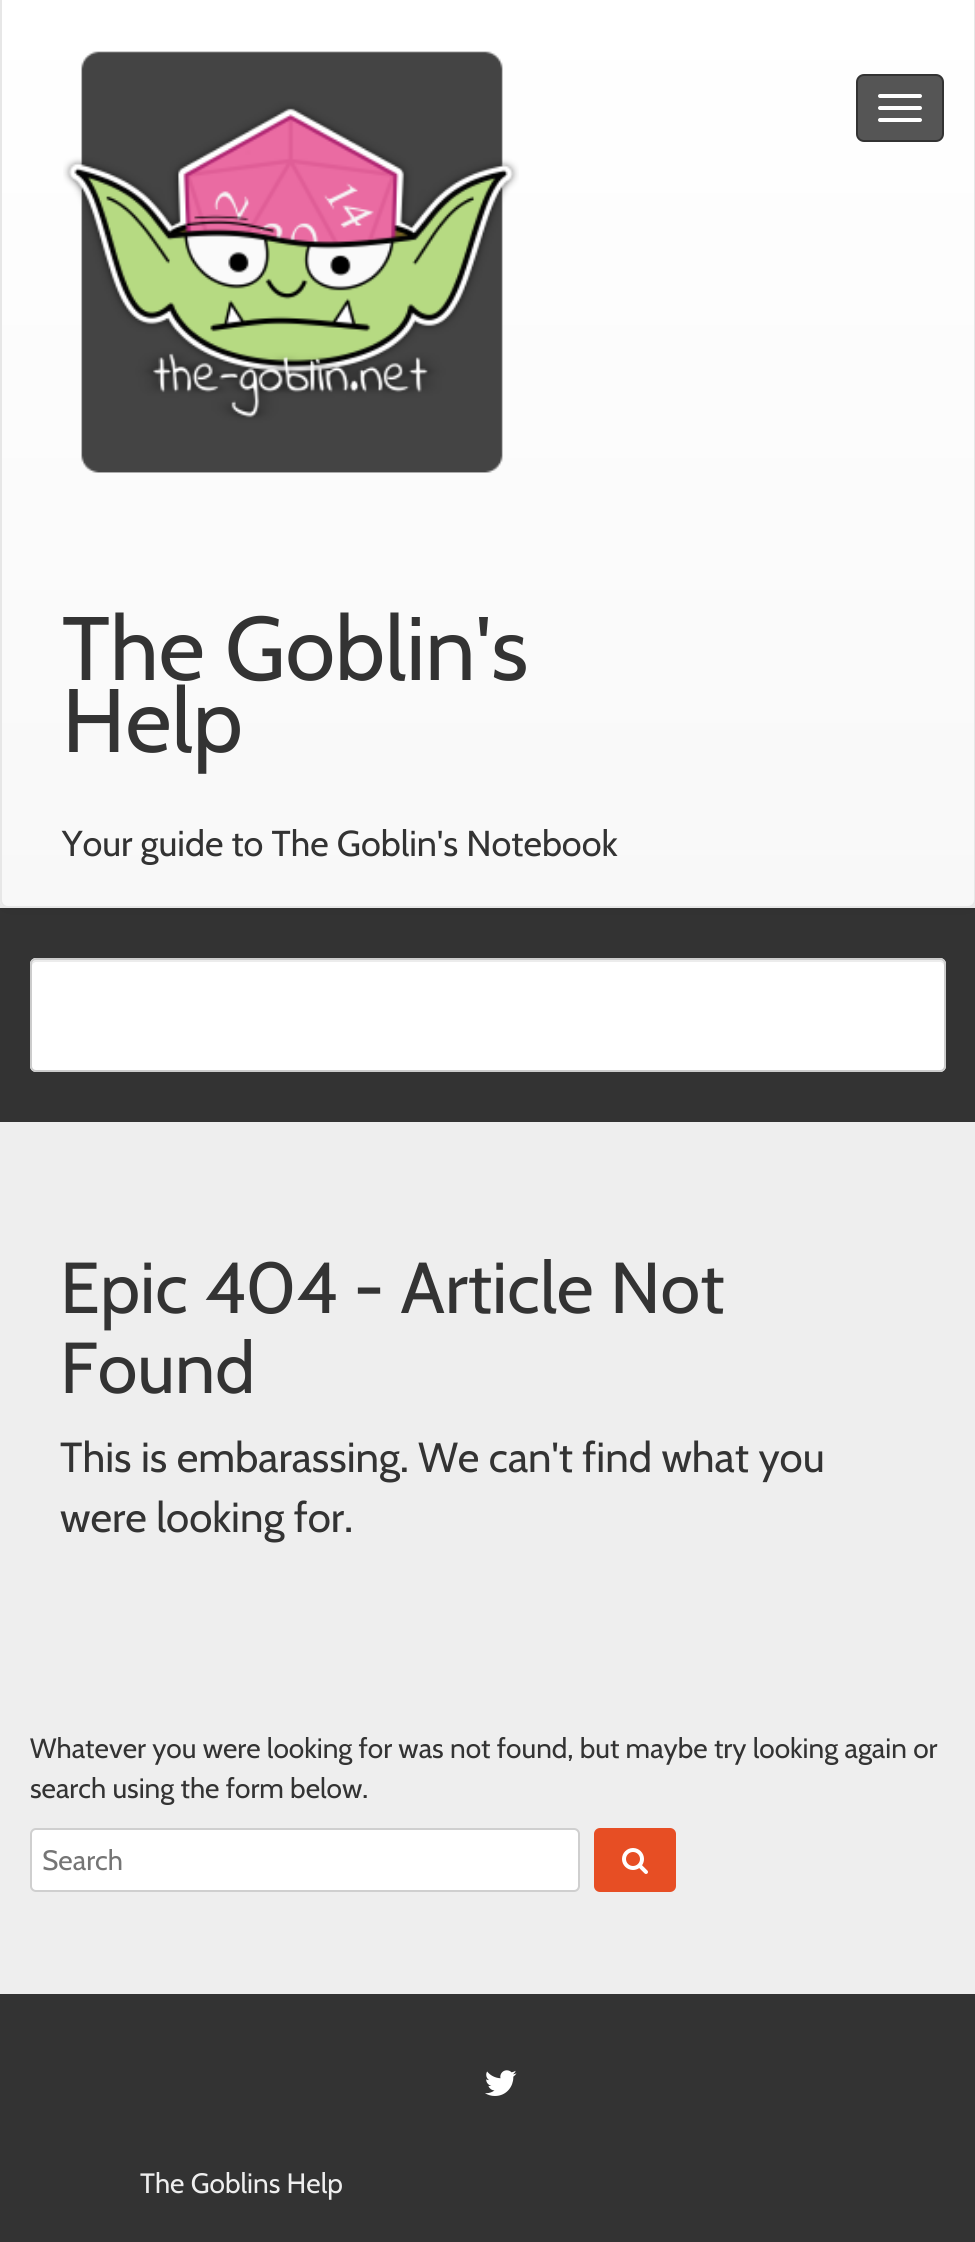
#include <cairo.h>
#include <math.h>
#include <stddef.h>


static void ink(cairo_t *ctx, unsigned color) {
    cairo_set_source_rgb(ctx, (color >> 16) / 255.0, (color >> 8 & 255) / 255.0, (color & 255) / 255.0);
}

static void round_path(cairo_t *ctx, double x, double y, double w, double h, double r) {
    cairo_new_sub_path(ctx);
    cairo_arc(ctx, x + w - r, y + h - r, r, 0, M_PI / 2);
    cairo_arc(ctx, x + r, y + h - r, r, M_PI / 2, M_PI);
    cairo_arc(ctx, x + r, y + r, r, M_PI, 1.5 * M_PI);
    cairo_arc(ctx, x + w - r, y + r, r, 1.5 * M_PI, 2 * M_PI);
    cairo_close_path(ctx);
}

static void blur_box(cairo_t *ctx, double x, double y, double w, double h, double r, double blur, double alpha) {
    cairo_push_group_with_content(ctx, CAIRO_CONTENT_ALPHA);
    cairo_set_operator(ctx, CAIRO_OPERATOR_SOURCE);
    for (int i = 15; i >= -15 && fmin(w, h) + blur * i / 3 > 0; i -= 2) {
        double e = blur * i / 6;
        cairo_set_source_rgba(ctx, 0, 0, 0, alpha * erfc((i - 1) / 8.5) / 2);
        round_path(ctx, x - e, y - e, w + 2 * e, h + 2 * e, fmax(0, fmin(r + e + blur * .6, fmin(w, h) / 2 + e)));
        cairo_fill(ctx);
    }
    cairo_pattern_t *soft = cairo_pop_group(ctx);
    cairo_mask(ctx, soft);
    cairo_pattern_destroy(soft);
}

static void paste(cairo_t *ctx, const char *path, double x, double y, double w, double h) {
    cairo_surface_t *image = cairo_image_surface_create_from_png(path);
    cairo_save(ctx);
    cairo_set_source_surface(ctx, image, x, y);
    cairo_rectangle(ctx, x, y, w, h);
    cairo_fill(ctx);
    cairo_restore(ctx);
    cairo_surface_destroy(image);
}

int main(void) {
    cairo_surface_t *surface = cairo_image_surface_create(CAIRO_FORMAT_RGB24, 975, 2242);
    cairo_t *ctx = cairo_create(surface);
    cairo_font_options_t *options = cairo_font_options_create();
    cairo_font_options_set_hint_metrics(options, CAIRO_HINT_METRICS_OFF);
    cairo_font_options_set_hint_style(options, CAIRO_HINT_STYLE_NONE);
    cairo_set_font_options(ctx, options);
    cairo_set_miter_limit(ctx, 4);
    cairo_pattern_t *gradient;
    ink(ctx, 0xEEEEEE);
    cairo_paint(ctx);
    ink(ctx, 0x333333);
    cairo_rectangle(ctx, 0, 908, 975, 214);
    cairo_fill(ctx);
    ink(ctx, 0x000000);
    blur_box(ctx, 0, -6, 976, 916, 8, 5, 0.07);
    cairo_save(ctx);
    round_path(ctx, 0, -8, 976, 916, 8);
    cairo_clip(ctx);
    gradient = cairo_pattern_create_linear(488, -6, 488, 906);
    cairo_pattern_add_color_stop_rgba(gradient, 0, 1, 1, 1, 1);
    cairo_pattern_add_color_stop_rgba(gradient, 1, 0.973, 0.973, 0.973, 1);
    cairo_set_source(ctx, gradient);
    cairo_pattern_destroy(gradient);
    cairo_rectangle(ctx, 0, 0, 975, 906);
    cairo_fill(ctx);
    cairo_restore(ctx);
    round_path(ctx, 1, -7, 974, 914, 7);
    ink(ctx, 0xE7E7E7);
    cairo_stroke(ctx);
    paste(ctx, "media/1.png", 63, 51, 456, 422);
    ink(ctx, 0x555555);
    round_path(ctx, 857, 75, 86, 66, 7);
    cairo_fill_preserve(ctx);
    ink(ctx, 0x333333);
    cairo_stroke(ctx);
    ink(ctx, 0xFFFFFF);
    round_path(ctx, 878, 94, 44, 4, 2);
    cairo_fill(ctx);
    round_path(ctx, 878, 106, 44, 4, 2);
    cairo_fill(ctx);
    round_path(ctx, 878, 118, 44, 4, 2);
    cairo_fill(ctx);
    cairo_select_font_face(ctx, "Cabin", CAIRO_FONT_SLANT_NORMAL, CAIRO_FONT_WEIGHT_NORMAL);
    cairo_set_font_size(ctx, 90);
    ink(ctx, 0x333333);
    cairo_move_to(ctx, 62, 680);
    cairo_show_text(ctx, "The Goblin's");
    cairo_move_to(ctx, 62, 752);
    cairo_show_text(ctx, "Help");
    cairo_set_font_size(ctx, 36);
    cairo_move_to(ctx, 62, 856);
    cairo_show_text(ctx, "Your guide to The Goblin's Notebook");
    ink(ctx, 0xFFFFFF);
    round_path(ctx, 30, 958, 916, 114, 6);
    cairo_fill(ctx);
    ink(ctx, 0xECECEC);
    cairo_new_path(ctx);
    cairo_move_to(ctx, 36, 962);
    cairo_line_to(ctx, 940, 962);
    cairo_curve_to(ctx, 942, 962, 944, 964, 944, 966);
    cairo_line_to(ctx, 944, 964);
    cairo_curve_to(ctx, 944, 962, 942, 960, 940, 960);
    cairo_line_to(ctx, 36, 960);
    cairo_curve_to(ctx, 34, 960, 32, 962, 32, 964);
    cairo_line_to(ctx, 32, 966);
    cairo_curve_to(ctx, 32, 964, 34, 962, 36, 962);
    cairo_close_path(ctx);
    cairo_fill(ctx);
    round_path(ctx, 31, 959, 914, 112, 5);
    ink(ctx, 0xCCCCCC);
    cairo_stroke(ctx);
    cairo_set_font_size(ctx, 72);
    ink(ctx, 0x333333);
    cairo_move_to(ctx, 60, 1313);
    cairo_show_text(ctx, "Epic 404 - Article Not");
    cairo_move_to(ctx, 60, 1393);
    cairo_show_text(ctx, "Found");
    cairo_set_font_size(ctx, 42);
    cairo_move_to(ctx, 60, 1472);
    cairo_show_text(ctx, "This is embarassing. We can't find what you");
    cairo_move_to(ctx, 60, 1532);
    cairo_show_text(ctx, "were looking for.");
    cairo_set_font_size(ctx, 28);
    cairo_move_to(ctx, 30, 1758);
    cairo_show_text(ctx, "Whatever you were looking for was not found, but maybe try looking again or");
    cairo_move_to(ctx, 30, 1798);
    cairo_show_text(ctx, "search using the form below.");
    ink(ctx, 0xFFFFFF);
    round_path(ctx, 31, 1829, 548, 62, 5);
    cairo_fill_preserve(ctx);
    ink(ctx, 0xCFCFCF);
    cairo_stroke(ctx);
    ink(ctx, 0x757575);
    cairo_move_to(ctx, 42, 1870);
    cairo_show_text(ctx, "Search");
    ink(ctx, 0xE74E24);
    round_path(ctx, 594, 1828, 82, 64, 6);
    cairo_fill(ctx);
    paste(ctx, "media/2.png", 622, 1848, 26, 26);
    ink(ctx, 0x333333);
    cairo_rectangle(ctx, 0, 1994, 975, 248);
    cairo_fill(ctx);
    paste(ctx, "media/3.png", 485, 2070, 32, 26);
    ink(ctx, 0xEEEEEE);
    cairo_move_to(ctx, 140, 2193);
    cairo_show_text(ctx, "The Goblins Help");
    cairo_surface_write_to_png(surface, "image.png");
    cairo_font_options_destroy(options);
    cairo_destroy(ctx);
    cairo_surface_destroy(surface);
    return 0;
}
